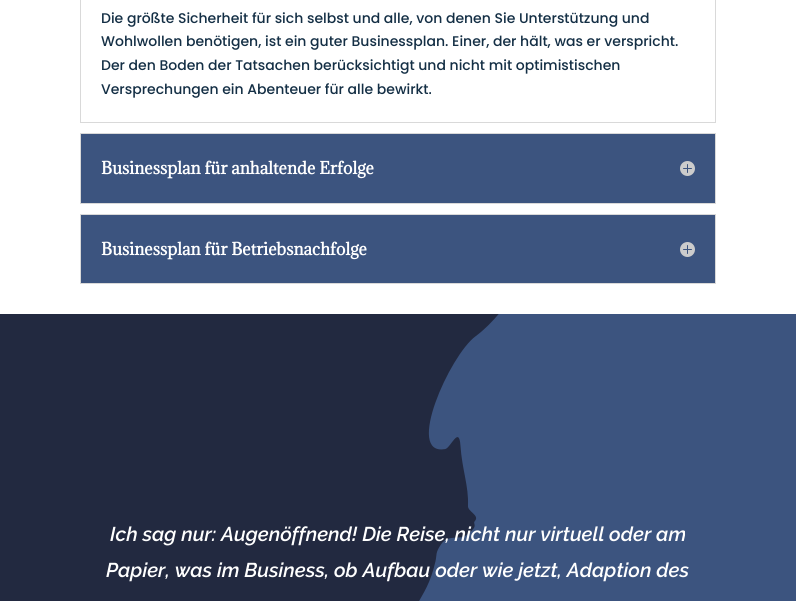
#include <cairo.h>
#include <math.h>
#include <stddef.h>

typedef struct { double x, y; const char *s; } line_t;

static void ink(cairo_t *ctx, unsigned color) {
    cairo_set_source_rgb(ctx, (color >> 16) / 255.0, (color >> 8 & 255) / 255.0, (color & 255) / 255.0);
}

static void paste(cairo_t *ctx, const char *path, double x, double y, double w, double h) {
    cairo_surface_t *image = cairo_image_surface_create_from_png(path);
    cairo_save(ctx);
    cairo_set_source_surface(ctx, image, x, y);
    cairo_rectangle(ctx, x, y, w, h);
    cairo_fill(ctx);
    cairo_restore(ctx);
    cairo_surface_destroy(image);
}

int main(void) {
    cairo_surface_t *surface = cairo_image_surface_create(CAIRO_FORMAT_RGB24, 796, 601);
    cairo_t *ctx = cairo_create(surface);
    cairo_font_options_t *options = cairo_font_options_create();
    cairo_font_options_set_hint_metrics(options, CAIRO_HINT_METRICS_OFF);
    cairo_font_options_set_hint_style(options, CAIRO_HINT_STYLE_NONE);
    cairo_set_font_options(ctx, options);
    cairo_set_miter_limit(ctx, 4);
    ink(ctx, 0xFFFFFF);
    cairo_paint(ctx);
    cairo_rectangle(ctx, 80.5, -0.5, 635, 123);
    ink(ctx, 0xD9D9D9);
    cairo_set_line_width(ctx, 1);
    cairo_stroke(ctx);
    cairo_select_font_face(ctx, "Poppins Medium", CAIRO_FONT_SLANT_NORMAL, CAIRO_FONT_WEIGHT_NORMAL);
    cairo_set_font_size(ctx, 14);
    ink(ctx, 0x142F45);
    {
        static const line_t items[] = {
            {101, 23, "Die größte Sicherheit für sich selbst und alle, von denen Sie Unterstützung und"},
            {101, 46, "Wohlwollen benötigen, ist ein guter Businessplan. Einer, der hält, was er verspricht."},
            {101, 70, "Der den Boden der Tatsachen berücksichtigt und nicht mit optimistischen"},
            {101, 94, "Versprechungen ein Abenteuer für alle bewirkt."},
        };
        for (size_t i = 0; i < sizeof items / sizeof *items; i++) {
            cairo_move_to(ctx, items[i].x, items[i].y);
            cairo_show_text(ctx, items[i].s);
        }
    }
    ink(ctx, 0x3C547F);
    cairo_rectangle(ctx, 80.5, 133.5, 635, 70);
    cairo_fill_preserve(ctx);
    ink(ctx, 0xD9D9D9);
    cairo_stroke(ctx);
    cairo_select_font_face(ctx, "Adamina", CAIRO_FONT_SLANT_NORMAL, CAIRO_FONT_WEIGHT_BOLD);
    cairo_set_font_size(ctx, 15.9);
    ink(ctx, 0xFFFFFF);
    cairo_move_to(ctx, 101, 174);
    cairo_show_text(ctx, "Businessplan für anhaltende Erfolge");
    paste(ctx, "media/1.png", 680, 161, 15, 15);
    ink(ctx, 0x3C547F);
    cairo_rectangle(ctx, 80.5, 214.5, 635, 69);
    cairo_fill_preserve(ctx);
    ink(ctx, 0xD9D9D9);
    cairo_stroke(ctx);
    ink(ctx, 0xFFFFFF);
    cairo_move_to(ctx, 101, 255);
    cairo_show_text(ctx, "Businessplan für Betriebsnachfolge");
    paste(ctx, "media/1.png", 680, 242, 15, 15);
    ink(ctx, 0x222940);
    cairo_rectangle(ctx, 0, 314, 499, 287);
    cairo_fill(ctx);
    paste(ctx, "media/2.png", 419, 314, 377, 287);
    cairo_select_font_face(ctx, "Raleway Thin", CAIRO_FONT_SLANT_ITALIC, CAIRO_FONT_WEIGHT_NORMAL);
    cairo_set_font_size(ctx, 20);
    ink(ctx, 0xFFFFFF);
    cairo_move_to(ctx, 110, 541);
    cairo_show_text(ctx, "Ich sag nur: Augenöffnend! Die Reise, nicht nur virtuell oder am");
    cairo_move_to(ctx, 106, 577);
    cairo_show_text(ctx, "Papier, was im Business, ob Aufbau oder wie jetzt, Adaption des");
    cairo_surface_write_to_png(surface, "image.png");
    cairo_font_options_destroy(options);
    cairo_destroy(ctx);
    cairo_surface_destroy(surface);
    return 0;
}
